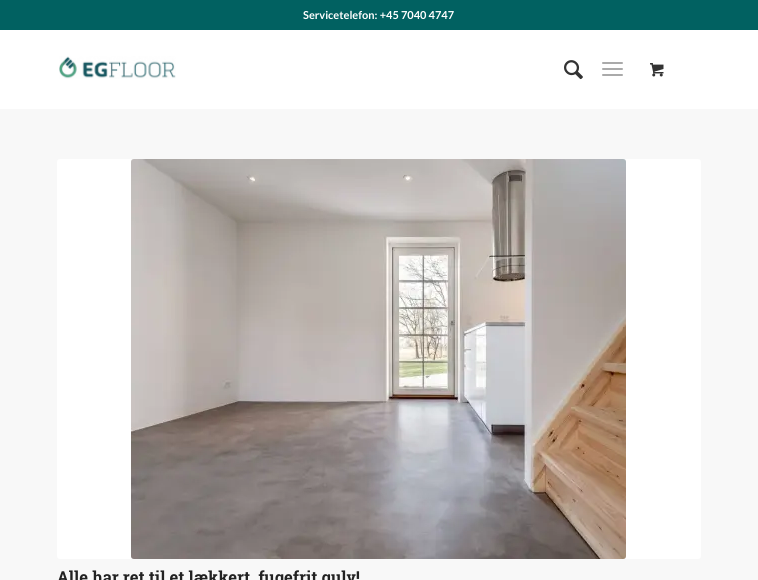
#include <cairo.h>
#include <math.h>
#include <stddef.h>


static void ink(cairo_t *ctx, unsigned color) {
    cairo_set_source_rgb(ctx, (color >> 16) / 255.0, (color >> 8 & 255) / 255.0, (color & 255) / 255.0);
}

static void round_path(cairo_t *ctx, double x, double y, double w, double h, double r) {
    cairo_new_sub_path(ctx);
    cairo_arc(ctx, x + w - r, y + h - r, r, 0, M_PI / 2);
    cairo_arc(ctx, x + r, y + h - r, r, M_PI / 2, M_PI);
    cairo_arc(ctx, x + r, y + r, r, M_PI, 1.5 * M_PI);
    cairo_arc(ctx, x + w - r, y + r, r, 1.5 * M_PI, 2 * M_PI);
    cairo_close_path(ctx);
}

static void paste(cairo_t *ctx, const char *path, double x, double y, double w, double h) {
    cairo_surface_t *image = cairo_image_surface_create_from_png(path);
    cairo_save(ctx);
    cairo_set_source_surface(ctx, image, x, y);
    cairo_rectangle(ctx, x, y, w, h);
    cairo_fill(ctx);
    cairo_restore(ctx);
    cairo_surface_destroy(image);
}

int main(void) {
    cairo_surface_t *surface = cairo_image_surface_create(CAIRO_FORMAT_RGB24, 758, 580);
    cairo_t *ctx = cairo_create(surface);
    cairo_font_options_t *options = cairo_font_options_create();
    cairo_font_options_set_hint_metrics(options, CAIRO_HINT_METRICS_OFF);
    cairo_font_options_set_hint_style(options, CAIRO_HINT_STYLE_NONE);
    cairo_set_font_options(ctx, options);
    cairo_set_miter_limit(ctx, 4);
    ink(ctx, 0xF8F8F8);
    cairo_paint(ctx);
    ink(ctx, 0x016161);
    cairo_rectangle(ctx, 0, 0, 758, 30);
    cairo_fill(ctx);
    cairo_select_font_face(ctx, "Lato", CAIRO_FONT_SLANT_NORMAL, CAIRO_FONT_WEIGHT_BOLD);
    cairo_set_font_size(ctx, 11);
    ink(ctx, 0xFFFFFF);
    cairo_move_to(ctx, 303, 19);
    cairo_show_text(ctx, "Servicetelefon: +45 7040 4747");
    cairo_rectangle(ctx, 0, 30, 758, 79);
    cairo_fill(ctx);
    paste(ctx, "media/1.png", 59, 56, 117, 23);
    paste(ctx, "media/2.png", 564, 60, 19, 20);
    ink(ctx, 0xAAAAAA);
    round_path(ctx, 602, 68, 21, 2, 1);
    cairo_fill(ctx);
    round_path(ctx, 602, 62, 21, 2, 1);
    cairo_fill(ctx);
    round_path(ctx, 602, 74, 21, 2, 1);
    cairo_fill(ctx);
    paste(ctx, "media/3.png", 650, 63, 14, 14);
    ink(ctx, 0xFFFFFF);
    round_path(ctx, 57, 159, 644, 400, 3);
    cairo_fill(ctx);
    paste(ctx, "media/4.png", 131, 159, 495, 400);
    cairo_select_font_face(ctx, "Roboto Slab", CAIRO_FONT_SLANT_NORMAL, CAIRO_FONT_WEIGHT_BOLD);
    cairo_set_font_size(ctx, 16.5);
    ink(ctx, 0x222222);
    cairo_move_to(ctx, 57, 583);
    cairo_show_text(ctx, "Alle har ret til et lækkert, fugefrit gulv!");
    cairo_surface_write_to_png(surface, "image.png");
    cairo_font_options_destroy(options);
    cairo_destroy(ctx);
    cairo_surface_destroy(surface);
    return 0;
}
